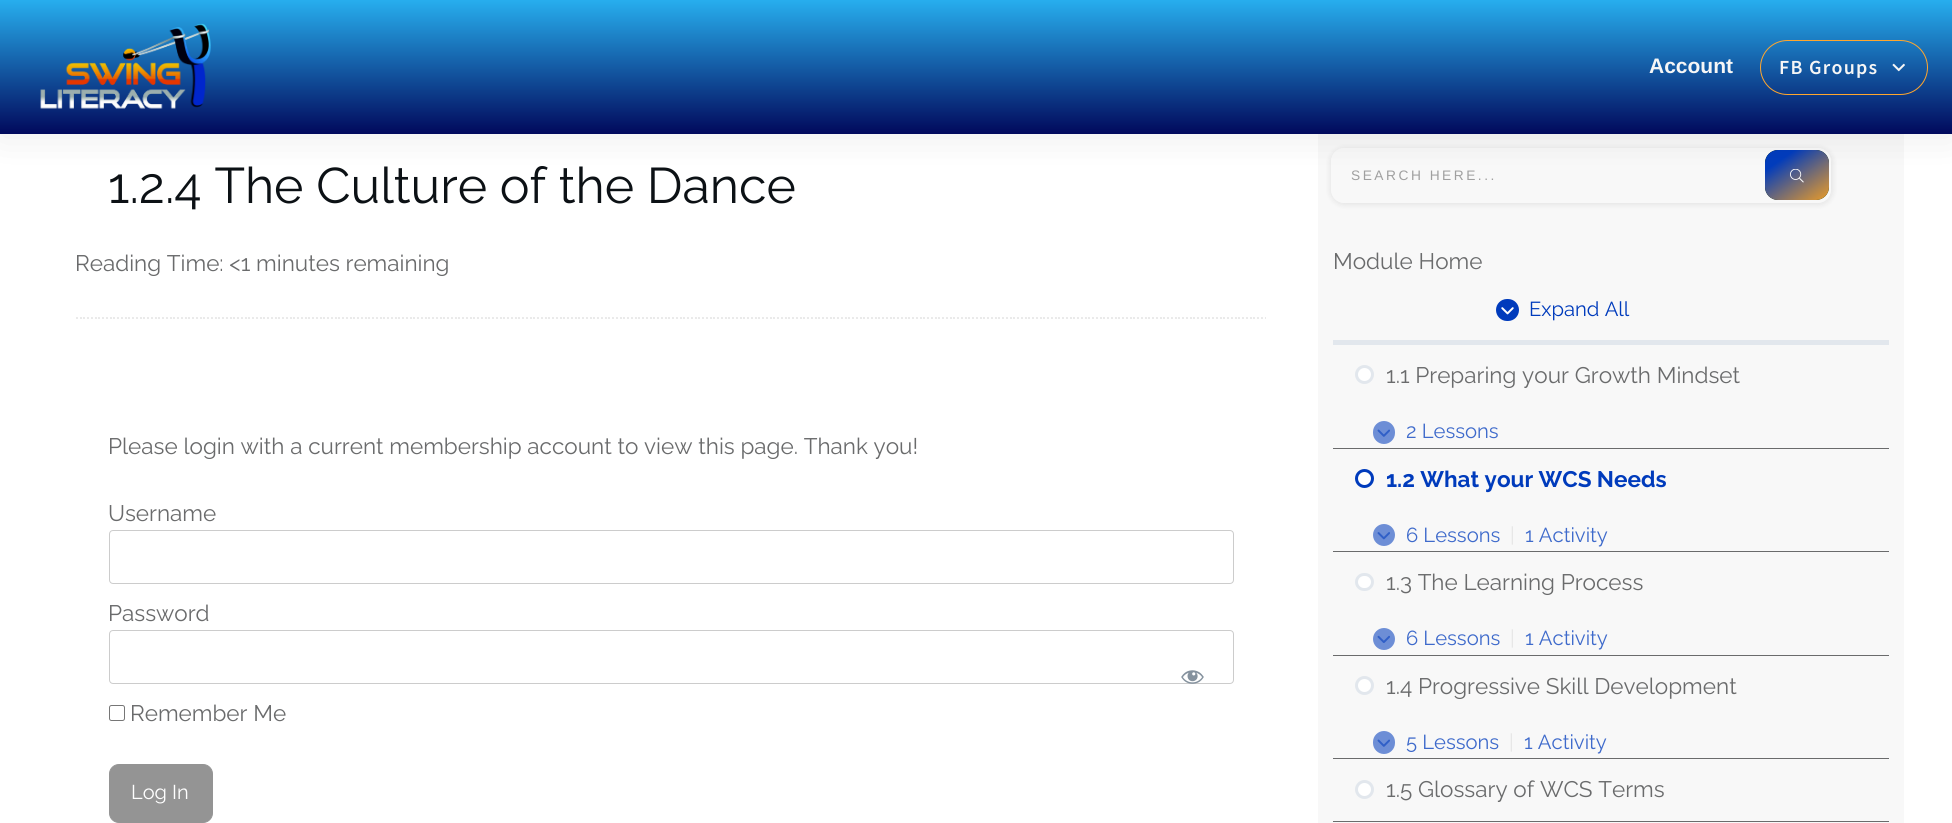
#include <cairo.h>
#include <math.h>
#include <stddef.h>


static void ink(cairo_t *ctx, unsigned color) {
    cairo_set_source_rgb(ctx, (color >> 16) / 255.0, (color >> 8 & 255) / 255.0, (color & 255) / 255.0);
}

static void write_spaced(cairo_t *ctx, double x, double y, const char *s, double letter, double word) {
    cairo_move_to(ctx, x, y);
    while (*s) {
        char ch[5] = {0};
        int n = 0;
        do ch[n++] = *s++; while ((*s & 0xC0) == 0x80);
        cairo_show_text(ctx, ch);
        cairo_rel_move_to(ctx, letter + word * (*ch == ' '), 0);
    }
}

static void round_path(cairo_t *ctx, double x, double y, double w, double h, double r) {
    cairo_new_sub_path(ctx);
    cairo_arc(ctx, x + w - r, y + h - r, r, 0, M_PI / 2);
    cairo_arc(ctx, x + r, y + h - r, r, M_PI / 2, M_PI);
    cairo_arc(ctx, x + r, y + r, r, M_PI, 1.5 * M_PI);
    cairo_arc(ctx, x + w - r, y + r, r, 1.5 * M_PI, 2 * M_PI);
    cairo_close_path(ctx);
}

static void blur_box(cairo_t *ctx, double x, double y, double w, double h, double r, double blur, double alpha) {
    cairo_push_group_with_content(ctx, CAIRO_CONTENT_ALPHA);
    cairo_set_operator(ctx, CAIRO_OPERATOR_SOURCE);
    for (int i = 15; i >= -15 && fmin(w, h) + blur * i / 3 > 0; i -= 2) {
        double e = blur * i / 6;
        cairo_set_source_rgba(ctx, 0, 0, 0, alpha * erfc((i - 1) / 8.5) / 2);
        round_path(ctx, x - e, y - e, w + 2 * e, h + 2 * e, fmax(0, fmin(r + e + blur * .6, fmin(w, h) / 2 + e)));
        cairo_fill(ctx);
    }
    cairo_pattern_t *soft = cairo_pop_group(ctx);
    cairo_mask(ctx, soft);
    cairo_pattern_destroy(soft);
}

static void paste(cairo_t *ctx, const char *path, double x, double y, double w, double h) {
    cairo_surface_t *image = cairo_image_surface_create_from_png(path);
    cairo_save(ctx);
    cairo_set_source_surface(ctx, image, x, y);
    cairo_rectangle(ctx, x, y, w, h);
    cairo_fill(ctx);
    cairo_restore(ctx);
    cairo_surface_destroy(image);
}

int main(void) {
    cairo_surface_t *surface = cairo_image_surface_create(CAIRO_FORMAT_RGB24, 1952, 823);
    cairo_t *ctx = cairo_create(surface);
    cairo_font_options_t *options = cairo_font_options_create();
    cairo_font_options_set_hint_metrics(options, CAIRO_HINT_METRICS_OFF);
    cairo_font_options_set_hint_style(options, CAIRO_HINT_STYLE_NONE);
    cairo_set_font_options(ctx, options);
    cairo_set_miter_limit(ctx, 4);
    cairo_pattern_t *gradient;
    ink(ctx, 0xFFFFFF);
    cairo_paint(ctx);
    ink(ctx, 0xF8F8F8);
    cairo_rectangle(ctx, 1318, 134, 586, 689);
    cairo_fill(ctx);
    cairo_save(ctx);
    cairo_set_fill_rule(ctx, CAIRO_FILL_RULE_EVEN_ODD);
    cairo_new_path(ctx);
    cairo_move_to(ctx, 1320, 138);
    cairo_line_to(ctx, 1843, 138);
    cairo_line_to(ctx, 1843, 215);
    cairo_line_to(ctx, 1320, 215);
    cairo_close_path(ctx);
    cairo_move_to(ctx, 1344, 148);
    cairo_line_to(ctx, 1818, 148);
    cairo_curve_to(ctx, 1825, 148, 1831, 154, 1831, 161);
    cairo_line_to(ctx, 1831, 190);
    cairo_curve_to(ctx, 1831, 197, 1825, 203, 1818, 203);
    cairo_line_to(ctx, 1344, 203);
    cairo_curve_to(ctx, 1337, 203, 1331, 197, 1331, 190);
    cairo_line_to(ctx, 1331, 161);
    cairo_curve_to(ctx, 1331, 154, 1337, 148, 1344, 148);
    cairo_close_path(ctx);
    cairo_clip(ctx);
    ink(ctx, 0x000000);
    blur_box(ctx, 1330, 148, 503, 57, 14, 3, 0.08);
    cairo_restore(ctx);
    ink(ctx, 0x012A01);
    round_path(ctx, 1765, 150, 64, 50, 13);
    cairo_fill(ctx);
    gradient = cairo_pattern_create_linear(1775, 143, 1819, 207);
    cairo_pattern_add_color_stop_rgba(gradient, 0.22, 0.004, 0.235, 0.737, 1);
    cairo_pattern_add_color_stop_rgba(gradient, 1, 1, 0.651, 0.176, 0.91);
    cairo_set_source(ctx, gradient);
    cairo_pattern_destroy(gradient);
    round_path(ctx, 1765, 150, 64, 50, 13);
    cairo_fill(ctx);
    paste(ctx, "media/5.png", 1790, 169, 14, 14);
    ink(ctx, 0x000000);
    blur_box(ctx, 0, 3, 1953, 133, 0, 19, 0.08);
    gradient = cairo_pattern_create_linear(976, 0, 976, 134);
    cairo_pattern_add_color_stop_rgba(gradient, 0, 0.153, 0.682, 0.933, 1);
    cairo_pattern_add_color_stop_rgba(gradient, 1, 0.004, 0.035, 0.361, 1);
    cairo_set_source(ctx, gradient);
    cairo_pattern_destroy(gradient);
    cairo_rectangle(ctx, 0, 0, 1952, 134);
    cairo_fill(ctx);
    paste(ctx, "media/1.png", 40, 23, 171, 86);
    cairo_select_font_face(ctx, "Liberation Sans", CAIRO_FONT_SLANT_NORMAL, CAIRO_FONT_WEIGHT_BOLD);
    cairo_set_font_size(ctx, 21);
    ink(ctx, 0xF6F6F6);
    cairo_move_to(ctx, 1649, 73);
    cairo_show_text(ctx, "Account");
    round_path(ctx, 1760.5, 40.5, 167, 54, 27);
    ink(ctx, 0xFFA62D);
    cairo_set_line_width(ctx, 1);
    cairo_stroke(ctx);
    cairo_select_font_face(ctx, "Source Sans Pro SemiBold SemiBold", CAIRO_FONT_SLANT_NORMAL, CAIRO_FONT_WEIGHT_NORMAL);
    cairo_set_font_size(ctx, 20);
    ink(ctx, 0xF6F6F6);
    write_spaced(ctx, 1779, 74, "FB Groups", 1.25, 0);
    paste(ctx, "media/2.png", 1892, 63, 13, 9);
    cairo_select_font_face(ctx, "Raleway", CAIRO_FONT_SLANT_NORMAL, CAIRO_FONT_WEIGHT_NORMAL);
    cairo_set_font_size(ctx, 50);
    ink(ctx, 0x0C1115);
    cairo_move_to(ctx, 108, 203);
    cairo_show_text(ctx, "1.2.4 The Culture of the Dance");
    cairo_set_font_size(ctx, 22.5);
    ink(ctx, 0x6A6B6C);
    cairo_move_to(ctx, 75, 271);
    cairo_show_text(ctx, "Reading Time: <1 minutes remaining");
    paste(ctx, "media/3.png", 76, 317, 1190, 2);
    cairo_move_to(ctx, 108, 454);
    cairo_show_text(ctx, "Please login with a current membership account to view this page. Thank you!");
    cairo_move_to(ctx, 108, 521);
    cairo_show_text(ctx, "Username");
    round_path(ctx, 109.5, 530.5, 1124, 53, 3.5);
    ink(ctx, 0xCCCCCC);
    cairo_stroke(ctx);
    ink(ctx, 0x6A6B6C);
    cairo_move_to(ctx, 108, 621);
    cairo_show_text(ctx, "Password");
    round_path(ctx, 109.5, 630.5, 1124, 53, 3.5);
    ink(ctx, 0xCCCCCC);
    cairo_stroke(ctx);
    paste(ctx, "media/4.png", 1181, 670, 23, 14);
    round_path(ctx, 109.5, 705.5, 15, 15, 2);
    ink(ctx, 0x767676);
    cairo_stroke(ctx);
    ink(ctx, 0x6A6B6C);
    cairo_move_to(ctx, 130, 721);
    cairo_show_text(ctx, "Remember Me");
    ink(ctx, 0x949494);
    round_path(ctx, 109.5, 764.5, 103, 58, 9.5);
    cairo_fill_preserve(ctx);
    cairo_stroke(ctx);
    cairo_set_font_size(ctx, 20);
    ink(ctx, 0xFFFFFF);
    cairo_move_to(ctx, 131, 799);
    cairo_show_text(ctx, "Log In");
    cairo_select_font_face(ctx, "Liberation Sans", CAIRO_FONT_SLANT_NORMAL, CAIRO_FONT_WEIGHT_NORMAL);
    cairo_set_font_size(ctx, 13.75);
    ink(ctx, 0x9F9F9F);
    write_spaced(ctx, 1351, 180, "SEARCH HERE...", 2.5, 0);
    ink(ctx, 0xE2E7ED);
    cairo_rectangle(ctx, 1333, 340, 556, 5);
    cairo_fill(ctx);
    cairo_select_font_face(ctx, "Raleway", CAIRO_FONT_SLANT_NORMAL, CAIRO_FONT_WEIGHT_NORMAL);
    cairo_set_font_size(ctx, 22.5);
    ink(ctx, 0x6A6B6C);
    cairo_move_to(ctx, 1333, 269);
    cairo_show_text(ctx, "Module Home");
    ink(ctx, 0x003BBC);
    round_path(ctx, 1496, 299, 23, 22, 11);
    cairo_fill(ctx);
    paste(ctx, "media/6.png", 1501, 307, 13, 8);
    cairo_set_font_size(ctx, 20.25);
    cairo_move_to(ctx, 1529, 316);
    cairo_show_text(ctx, "Expand All");
    ink(ctx, 0x6A6B6C);
    cairo_rectangle(ctx, 1333, 448, 556, 1);
    cairo_fill(ctx);
    ink(ctx, 0xFFFFFF);
    cairo_arc(ctx, 1364.5, 374.5, 8, 0, 2 * M_PI);
    cairo_fill_preserve(ctx);
    ink(ctx, 0xE2E7ED);
    cairo_set_line_width(ctx, 3);
    cairo_stroke(ctx);
    cairo_set_font_size(ctx, 22.5);
    ink(ctx, 0x6A6B6C);
    cairo_move_to(ctx, 1386, 383);
    cairo_show_text(ctx, "1.1 Preparing your Growth Mindset");
    ink(ctx, 0x6D8ED6);
    round_path(ctx, 1373, 421, 22, 23, 11);
    cairo_fill(ctx);
    paste(ctx, "media/7.png", 1377, 429, 13, 8);
    cairo_set_font_size(ctx, 20.25);
    ink(ctx, 0x3E6ACB);
    cairo_move_to(ctx, 1406, 438);
    cairo_show_text(ctx, "2 Lessons");
    ink(ctx, 0x6A6B6C);
    cairo_rectangle(ctx, 1333, 551, 556, 1);
    cairo_fill(ctx);
    ink(ctx, 0xFFFFFF);
    cairo_arc(ctx, 1364.5, 478.5, 8, 0, 2 * M_PI);
    cairo_fill_preserve(ctx);
    ink(ctx, 0x003BBC);
    cairo_stroke(ctx);
    cairo_select_font_face(ctx, "Raleway", CAIRO_FONT_SLANT_NORMAL, CAIRO_FONT_WEIGHT_BOLD);
    cairo_set_font_size(ctx, 22.5);
    cairo_move_to(ctx, 1386, 487);
    cairo_show_text(ctx, "1.2 What your WCS Needs");
    ink(ctx, 0x6D8ED6);
    cairo_new_path(ctx);
    cairo_arc(ctx, 1384, 535, 11, 0, 2 * M_PI);
    cairo_fill(ctx);
    paste(ctx, "media/8.png", 1377, 532, 13, 8);
    cairo_select_font_face(ctx, "Raleway", CAIRO_FONT_SLANT_NORMAL, CAIRO_FONT_WEIGHT_NORMAL);
    cairo_set_font_size(ctx, 20.25);
    ink(ctx, 0x3E6ACB);
    cairo_move_to(ctx, 1406, 542);
    cairo_show_text(ctx, "6 Lessons");
    ink(ctx, 0xE5E5E5);
    cairo_move_to(ctx, 1510, 542);
    cairo_show_text(ctx, "|");
    ink(ctx, 0x3E6ACB);
    cairo_move_to(ctx, 1525, 542);
    cairo_show_text(ctx, "1 Activity");
    ink(ctx, 0x6A6B6C);
    cairo_rectangle(ctx, 1333, 655, 556, 1);
    cairo_fill(ctx);
    ink(ctx, 0xFFFFFF);
    round_path(ctx, 1356.5, 574.5, 16, 15, 7.5);
    cairo_fill_preserve(ctx);
    ink(ctx, 0xE2E7ED);
    cairo_stroke(ctx);
    cairo_set_font_size(ctx, 22.5);
    ink(ctx, 0x6A6B6C);
    cairo_move_to(ctx, 1386, 590);
    cairo_show_text(ctx, "1.3 The Learning Process");
    ink(ctx, 0x6D8ED6);
    cairo_new_path(ctx);
    cairo_arc(ctx, 1384, 639, 11, 0, 2 * M_PI);
    cairo_fill(ctx);
    paste(ctx, "media/9.png", 1377, 635, 13, 8);
    cairo_set_font_size(ctx, 20.25);
    ink(ctx, 0x3E6ACB);
    cairo_move_to(ctx, 1406, 645);
    cairo_show_text(ctx, "6 Lessons");
    ink(ctx, 0xE5E5E5);
    cairo_move_to(ctx, 1510, 645);
    cairo_show_text(ctx, "|");
    ink(ctx, 0x3E6ACB);
    cairo_move_to(ctx, 1525, 645);
    cairo_show_text(ctx, "1 Activity");
    ink(ctx, 0x6A6B6C);
    cairo_rectangle(ctx, 1333, 758, 556, 1);
    cairo_fill(ctx);
    ink(ctx, 0xFFFFFF);
    cairo_arc(ctx, 1364.5, 685.5, 8, 0, 2 * M_PI);
    cairo_fill_preserve(ctx);
    ink(ctx, 0xE2E7ED);
    cairo_stroke(ctx);
    cairo_set_font_size(ctx, 22.5);
    ink(ctx, 0x6A6B6C);
    cairo_move_to(ctx, 1386, 694);
    cairo_show_text(ctx, "1.4 Progressive Skill Development");
    ink(ctx, 0x6D8ED6);
    round_path(ctx, 1373, 731, 22, 23, 11);
    cairo_fill(ctx);
    paste(ctx, "media/7.png", 1377, 739, 13, 8);
    cairo_set_font_size(ctx, 20.25);
    ink(ctx, 0x3E6ACB);
    cairo_move_to(ctx, 1406, 749);
    cairo_show_text(ctx, "5 Lessons");
    ink(ctx, 0xE5E5E5);
    cairo_move_to(ctx, 1509, 749);
    cairo_show_text(ctx, "|");
    ink(ctx, 0x3E6ACB);
    cairo_move_to(ctx, 1524, 749);
    cairo_show_text(ctx, "1 Activity");
    ink(ctx, 0x6A6B6C);
    cairo_rectangle(ctx, 1333, 821, 556, 1);
    cairo_fill(ctx);
    ink(ctx, 0xFFFFFF);
    cairo_arc(ctx, 1364.5, 789.5, 8, 0, 2 * M_PI);
    cairo_fill_preserve(ctx);
    ink(ctx, 0xE2E7ED);
    cairo_stroke(ctx);
    cairo_set_font_size(ctx, 22.5);
    ink(ctx, 0x6A6B6C);
    cairo_move_to(ctx, 1386, 797);
    cairo_show_text(ctx, "1.5 Glossary of WCS Terms");
    cairo_surface_write_to_png(surface, "image.png");
    cairo_font_options_destroy(options);
    cairo_destroy(ctx);
    cairo_surface_destroy(surface);
    return 0;
}
